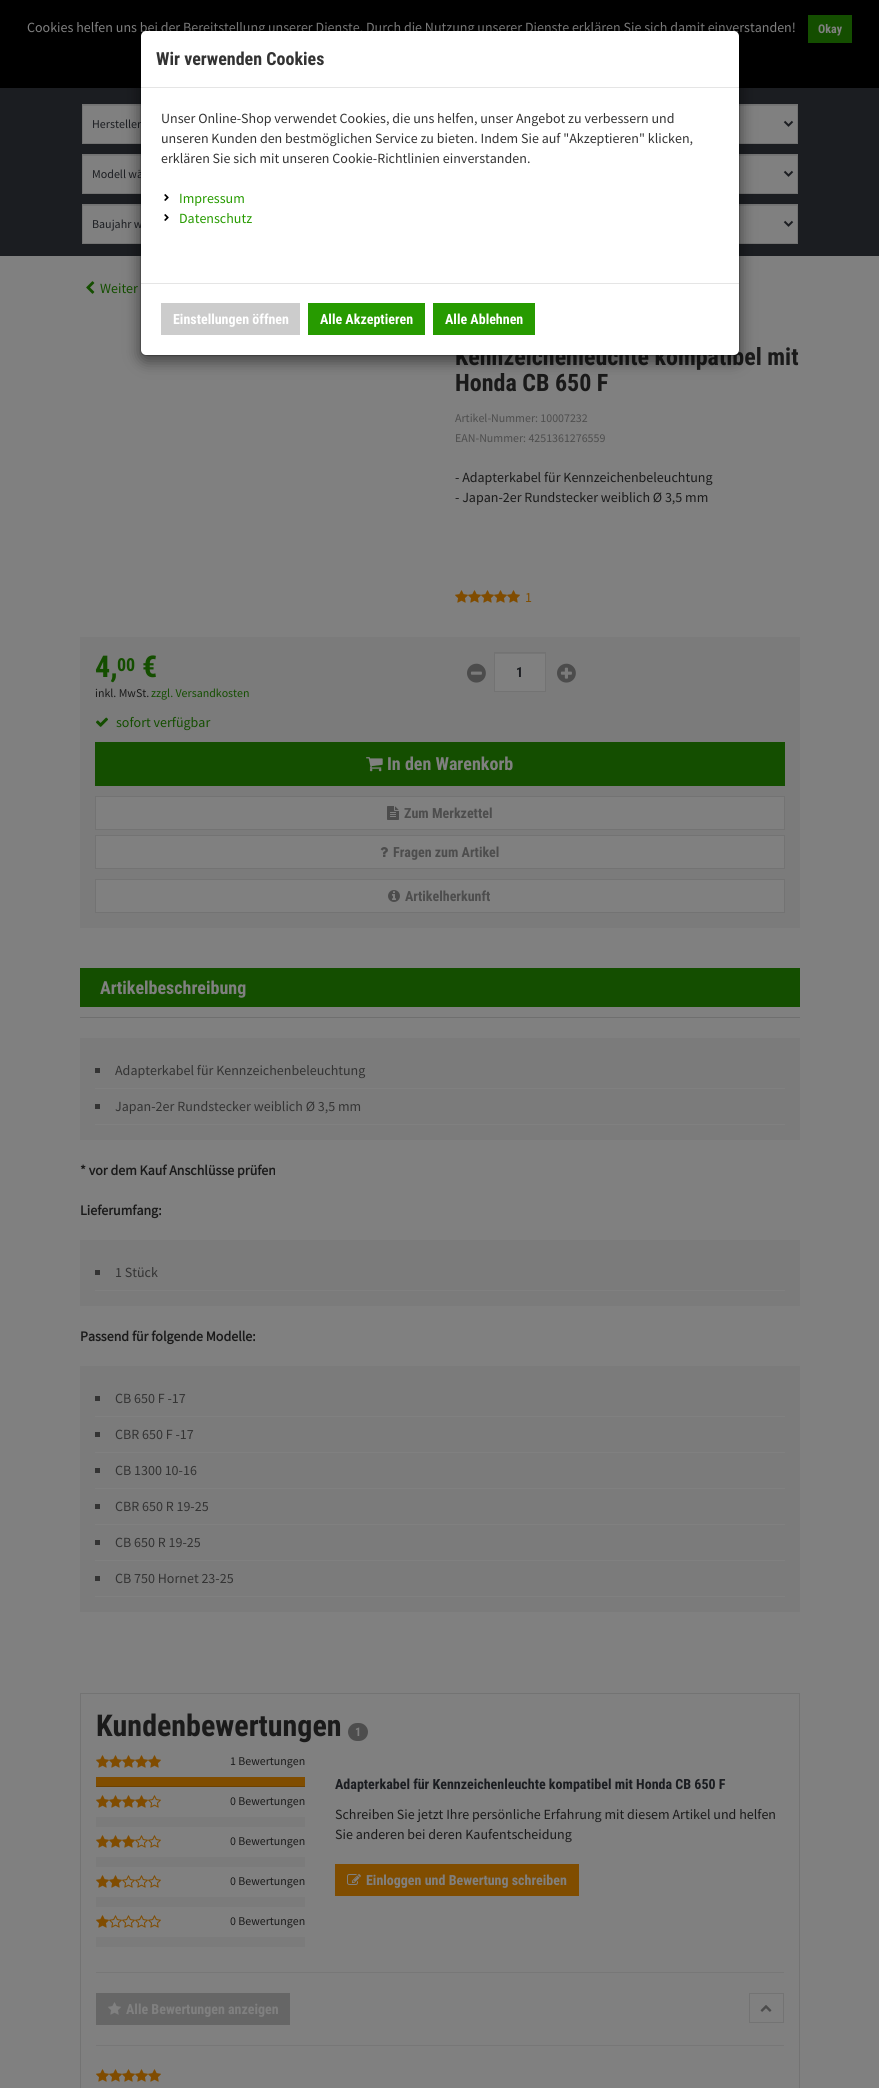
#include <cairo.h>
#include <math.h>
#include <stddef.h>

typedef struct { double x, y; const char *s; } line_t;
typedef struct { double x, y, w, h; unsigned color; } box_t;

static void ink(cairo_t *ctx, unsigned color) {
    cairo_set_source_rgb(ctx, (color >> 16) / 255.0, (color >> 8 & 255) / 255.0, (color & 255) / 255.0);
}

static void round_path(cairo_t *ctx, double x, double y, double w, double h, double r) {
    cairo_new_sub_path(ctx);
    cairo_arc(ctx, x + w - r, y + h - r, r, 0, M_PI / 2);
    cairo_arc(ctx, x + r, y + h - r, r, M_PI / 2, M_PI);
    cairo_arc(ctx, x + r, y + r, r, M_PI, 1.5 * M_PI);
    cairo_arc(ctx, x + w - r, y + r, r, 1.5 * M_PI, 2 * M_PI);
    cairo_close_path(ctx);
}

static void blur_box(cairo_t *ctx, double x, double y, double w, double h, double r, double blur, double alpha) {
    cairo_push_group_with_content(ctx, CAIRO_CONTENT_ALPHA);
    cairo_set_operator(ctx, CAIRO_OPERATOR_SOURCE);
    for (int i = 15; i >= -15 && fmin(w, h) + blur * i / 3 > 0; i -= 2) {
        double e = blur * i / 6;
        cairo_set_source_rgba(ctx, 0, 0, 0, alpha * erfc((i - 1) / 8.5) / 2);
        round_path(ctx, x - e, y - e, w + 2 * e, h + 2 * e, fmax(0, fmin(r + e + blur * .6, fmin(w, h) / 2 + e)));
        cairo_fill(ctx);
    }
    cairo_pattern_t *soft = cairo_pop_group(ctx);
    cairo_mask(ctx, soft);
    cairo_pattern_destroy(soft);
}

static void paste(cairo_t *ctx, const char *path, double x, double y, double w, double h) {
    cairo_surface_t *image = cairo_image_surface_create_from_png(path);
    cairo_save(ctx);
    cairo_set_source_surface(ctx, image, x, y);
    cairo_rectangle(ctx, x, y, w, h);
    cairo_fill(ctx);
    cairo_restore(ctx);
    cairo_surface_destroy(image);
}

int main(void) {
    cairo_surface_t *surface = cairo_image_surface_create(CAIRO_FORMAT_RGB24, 879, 2088);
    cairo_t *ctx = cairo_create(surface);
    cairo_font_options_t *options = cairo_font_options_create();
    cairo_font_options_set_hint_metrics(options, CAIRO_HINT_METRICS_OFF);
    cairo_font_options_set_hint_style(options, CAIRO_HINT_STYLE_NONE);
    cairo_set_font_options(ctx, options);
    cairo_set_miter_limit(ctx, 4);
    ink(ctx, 0x808080);
    cairo_paint(ctx);
    ink(ctx, 0x000000);
    cairo_rectangle(ctx, 0, 0, 879, 88);
    cairo_fill(ctx);
    cairo_select_font_face(ctx, "Source Sans Pro", CAIRO_FONT_SLANT_NORMAL, CAIRO_FONT_WEIGHT_NORMAL);
    cairo_set_font_size(ctx, 14);
    ink(ctx, 0x808080);
    cairo_move_to(ctx, 27, 32);
    cairo_show_text(ctx, "Cookies helfen uns bei der Bereitstellung unserer Dienste. Durch die Nutzung unserer Dienste erklären Sie sich damit einverstanden!");
    ink(ctx, 0x144E00);
    cairo_rectangle(ctx, 808, 15, 44, 28);
    cairo_fill(ctx);
    cairo_select_font_face(ctx, "Roboto Condensed", CAIRO_FONT_SLANT_NORMAL, CAIRO_FONT_WEIGHT_BOLD);
    cairo_set_font_size(ctx, 12);
    ink(ctx, 0x808080);
    cairo_move_to(ctx, 818, 33);
    cairo_show_text(ctx, "Okay");
    {
        static const box_t items[] = {
            {0, 88, 879, 168, 0x1B1D21},
            {83, 106, 714, 37, 0x808080},
            {83, 105, 714, 1, 0x767676},
        };
        for (size_t i = 0; i < sizeof items / sizeof *items; i++) {
            ink(ctx, items[i].color);
            cairo_rectangle(ctx, items[i].x, items[i].y, items[i].w, items[i].h);
            cairo_fill(ctx);
        }
    }
    cairo_rectangle(ctx, 82.5, 104.5, 715, 39);
    ink(ctx, 0x737373);
    cairo_set_line_width(ctx, 1);
    cairo_stroke(ctx);
    cairo_new_path(ctx);
    cairo_move_to(ctx, 784.5, 121.5);
    cairo_line_to(ctx, 788.5, 125.5);
    cairo_line_to(ctx, 792.5, 121.5);
    ink(ctx, 0x1B1D21);
    cairo_set_line_width(ctx, 2);
    cairo_stroke(ctx);
    cairo_select_font_face(ctx, "Source Sans Pro", CAIRO_FONT_SLANT_NORMAL, CAIRO_FONT_WEIGHT_NORMAL);
    cairo_move_to(ctx, 92, 128);
    cairo_show_text(ctx, "Hersteller");
    ink(ctx, 0x808080);
    cairo_rectangle(ctx, 83, 156, 714, 37);
    cairo_fill(ctx);
    ink(ctx, 0x767676);
    cairo_rectangle(ctx, 83, 155, 714, 1);
    cairo_fill(ctx);
    cairo_rectangle(ctx, 82.5, 154.5, 715, 39);
    ink(ctx, 0x737373);
    cairo_set_line_width(ctx, 1);
    cairo_stroke(ctx);
    cairo_new_path(ctx);
    cairo_move_to(ctx, 784.5, 171.5);
    cairo_line_to(ctx, 788.5, 175.5);
    cairo_line_to(ctx, 792.5, 171.5);
    ink(ctx, 0x1B1D21);
    cairo_set_line_width(ctx, 2);
    cairo_stroke(ctx);
    cairo_move_to(ctx, 92, 178);
    cairo_show_text(ctx, "Modell wä");
    ink(ctx, 0x808080);
    cairo_rectangle(ctx, 83, 206, 714, 37);
    cairo_fill(ctx);
    ink(ctx, 0x767676);
    cairo_rectangle(ctx, 83, 205, 714, 1);
    cairo_fill(ctx);
    cairo_rectangle(ctx, 82.5, 204.5, 715, 39);
    ink(ctx, 0x737373);
    cairo_set_line_width(ctx, 1);
    cairo_stroke(ctx);
    cairo_new_path(ctx);
    cairo_move_to(ctx, 784.5, 221.5);
    cairo_line_to(ctx, 788.5, 225.5);
    cairo_line_to(ctx, 792.5, 221.5);
    ink(ctx, 0x1B1D21);
    cairo_set_line_width(ctx, 2);
    cairo_stroke(ctx);
    cairo_move_to(ctx, 92, 228);
    cairo_show_text(ctx, "Baujahr w");
    paste(ctx, "media/1.png", 86, 281, 9, 13);
    cairo_set_font_size(ctx, 14);
    ink(ctx, 0x144E00);
    cairo_move_to(ctx, 100, 293);
    cairo_show_text(ctx, "Weiter");
    cairo_select_font_face(ctx, "Roboto Condensed", CAIRO_FONT_SLANT_NORMAL, CAIRO_FONT_WEIGHT_BOLD);
    cairo_set_font_size(ctx, 24);
    ink(ctx, 0x1A1A1A);
    cairo_move_to(ctx, 455, 365);
    cairo_show_text(ctx, "Kennzeichenleuchte kompatibel mit");
    cairo_move_to(ctx, 455, 391);
    cairo_show_text(ctx, "Honda CB 650 F");
    cairo_select_font_face(ctx, "Source Sans Pro", CAIRO_FONT_SLANT_NORMAL, CAIRO_FONT_WEIGHT_NORMAL);
    cairo_set_font_size(ctx, 11.9);
    ink(ctx, 0x4D4D4D);
    cairo_move_to(ctx, 455, 422);
    cairo_show_text(ctx, "Artikel-Nummer: 10007232");
    cairo_move_to(ctx, 455, 442);
    cairo_show_text(ctx, "EAN-Nummer: 4251361276559");
    cairo_set_font_size(ctx, 14);
    ink(ctx, 0x1A1A1A);
    cairo_move_to(ctx, 455, 482);
    cairo_show_text(ctx, "- Adapterkabel für Kennzeichenbeleuchtung");
    cairo_move_to(ctx, 455, 502);
    cairo_show_text(ctx, "- Japan-2er Rundstecker weiblich Ø 3,5 mm");
    paste(ctx, "media/2.png", 455, 590, 13, 13);
    paste(ctx, "media/2.png", 468, 590, 13, 13);
    paste(ctx, "media/2.png", 481, 590, 13, 13);
    paste(ctx, "media/2.png", 494, 590, 13, 13);
    paste(ctx, "media/2.png", 507, 590, 13, 13);
    ink(ctx, 0x804D00);
    cairo_move_to(ctx, 525, 602);
    cairo_show_text(ctx, "1");
    ink(ctx, 0x7B7B7B);
    cairo_rectangle(ctx, 80, 637, 720, 291);
    cairo_fill(ctx);
    cairo_select_font_face(ctx, "Roboto Condensed", CAIRO_FONT_SLANT_NORMAL, CAIRO_FONT_WEIGHT_BOLD);
    cairo_set_font_size(ctx, 30);
    ink(ctx, 0x144E00);
    cairo_move_to(ctx, 95, 677);
    cairo_show_text(ctx, "4,");
    cairo_set_font_size(ctx, 18);
    cairo_move_to(ctx, 117, 671);
    cairo_show_text(ctx, "00");
    cairo_set_font_size(ctx, 30);
    cairo_move_to(ctx, 142, 677);
    cairo_show_text(ctx, "€");
    cairo_select_font_face(ctx, "Source Sans Pro", CAIRO_FONT_SLANT_NORMAL, CAIRO_FONT_WEIGHT_NORMAL);
    cairo_set_font_size(ctx, 11.9);
    ink(ctx, 0x1A1A1A);
    cairo_move_to(ctx, 95, 697);
    cairo_show_text(ctx, "inkl. MwSt.");
    ink(ctx, 0x144E00);
    cairo_move_to(ctx, 151, 697);
    cairo_show_text(ctx, "zzgl. Versandkosten");
    paste(ctx, "media/3.png", 96, 717, 12, 10);
    cairo_set_font_size(ctx, 14);
    cairo_move_to(ctx, 116, 727);
    cairo_show_text(ctx, "sofort verfügbar");
    paste(ctx, "media/4.png", 467, 663, 19, 20);
    ink(ctx, 0x808080);
    cairo_rectangle(ctx, 495, 654, 50, 37);
    cairo_fill(ctx);
    ink(ctx, 0x767676);
    cairo_rectangle(ctx, 495, 653, 50, 1);
    cairo_fill(ctx);
    cairo_rectangle(ctx, 494.5, 652.5, 51, 39);
    ink(ctx, 0x737373);
    cairo_set_line_width(ctx, 1);
    cairo_stroke(ctx);
    cairo_select_font_face(ctx, "Roboto Condensed", CAIRO_FONT_SLANT_NORMAL, CAIRO_FONT_WEIGHT_BOLD);
    ink(ctx, 0x1B1D21);
    cairo_move_to(ctx, 516, 677);
    cairo_show_text(ctx, "1");
    paste(ctx, "media/5.png", 557, 663, 19, 20);
    ink(ctx, 0x144E00);
    cairo_rectangle(ctx, 95, 742, 690, 44);
    cairo_fill(ctx);
    paste(ctx, "media/6.png", 366, 757, 17, 15);
    cairo_set_font_size(ctx, 18);
    ink(ctx, 0x808080);
    cairo_move_to(ctx, 387, 770);
    cairo_show_text(ctx, "In den Warenkorb");
    cairo_rectangle(ctx, 95.5, 796.5, 689, 33);
    cairo_fill_preserve(ctx);
    ink(ctx, 0x737373);
    cairo_stroke(ctx);
    paste(ctx, "media/7.png", 387, 806, 12, 14);
    cairo_set_font_size(ctx, 14);
    ink(ctx, 0x4D4D4D);
    cairo_move_to(ctx, 404, 818);
    cairo_show_text(ctx, "Zum Merkzettel");
    ink(ctx, 0x808080);
    cairo_rectangle(ctx, 95.5, 835.5, 689, 33);
    cairo_fill_preserve(ctx);
    ink(ctx, 0x737373);
    cairo_stroke(ctx);
    paste(ctx, "media/8.png", 380, 847, 8, 10);
    ink(ctx, 0x4D4D4D);
    cairo_move_to(ctx, 393, 857);
    cairo_show_text(ctx, "Fragen zum Artikel");
    ink(ctx, 0x808080);
    cairo_rectangle(ctx, 95.5, 879.5, 689, 33);
    cairo_fill_preserve(ctx);
    ink(ctx, 0x737373);
    cairo_stroke(ctx);
    paste(ctx, "media/9.png", 388, 890, 12, 12);
    ink(ctx, 0x4D4D4D);
    cairo_move_to(ctx, 405, 901);
    cairo_show_text(ctx, "Artikelherkunft");
    ink(ctx, 0x144E00);
    cairo_rectangle(ctx, 80, 968, 720, 39);
    cairo_fill(ctx);
    cairo_set_font_size(ctx, 18);
    ink(ctx, 0x808080);
    cairo_move_to(ctx, 100, 994);
    cairo_show_text(ctx, "Artikelbeschreibung");
    {
        static const box_t items[] = {
            {80, 1017, 720, 1, 0x6F6F6F},
            {80, 1038, 720, 102, 0x7B7B7B},
            {95, 1088, 690, 1, 0x808080},
            {95, 1068, 5, 5, 0x333333},
        };
        for (size_t i = 0; i < sizeof items / sizeof *items; i++) {
            ink(ctx, items[i].color);
            cairo_rectangle(ctx, items[i].x, items[i].y, items[i].w, items[i].h);
            cairo_fill(ctx);
        }
    }
    cairo_select_font_face(ctx, "Source Sans Pro", CAIRO_FONT_SLANT_NORMAL, CAIRO_FONT_WEIGHT_NORMAL);
    cairo_set_font_size(ctx, 14);
    cairo_move_to(ctx, 115, 1075);
    cairo_show_text(ctx, "Adapterkabel für Kennzeichenbeleuchtung");
    ink(ctx, 0x808080);
    cairo_rectangle(ctx, 95, 1124, 690, 1);
    cairo_fill(ctx);
    ink(ctx, 0x333333);
    cairo_rectangle(ctx, 95, 1104, 5, 5);
    cairo_fill(ctx);
    cairo_move_to(ctx, 115, 1111);
    cairo_show_text(ctx, "Japan-2er Rundstecker weiblich Ø 3,5 mm");
    cairo_select_font_face(ctx, "Source Sans Pro", CAIRO_FONT_SLANT_NORMAL, CAIRO_FONT_WEIGHT_BOLD);
    ink(ctx, 0x1A1A1A);
    cairo_move_to(ctx, 80, 1175);
    cairo_show_text(ctx, "* vor dem Kauf Anschlüsse prüfen");
    cairo_move_to(ctx, 80, 1215);
    cairo_show_text(ctx, "Lieferumfang:");
    {
        static const box_t items[] = {
            {80, 1240, 720, 66, 0x7B7B7B},
            {95, 1290, 690, 1, 0x808080},
            {95, 1270, 5, 5, 0x333333},
        };
        for (size_t i = 0; i < sizeof items / sizeof *items; i++) {
            ink(ctx, items[i].color);
            cairo_rectangle(ctx, items[i].x, items[i].y, items[i].w, items[i].h);
            cairo_fill(ctx);
        }
    }
    cairo_select_font_face(ctx, "Source Sans Pro", CAIRO_FONT_SLANT_NORMAL, CAIRO_FONT_WEIGHT_NORMAL);
    cairo_move_to(ctx, 115, 1277);
    cairo_show_text(ctx, "1 Stück");
    cairo_select_font_face(ctx, "Source Sans Pro", CAIRO_FONT_SLANT_NORMAL, CAIRO_FONT_WEIGHT_BOLD);
    ink(ctx, 0x1A1A1A);
    cairo_move_to(ctx, 80, 1341);
    cairo_show_text(ctx, "Passend für folgende Modelle:");
    {
        static const box_t items[] = {
            {80, 1366, 720, 246, 0x7B7B7B},
            {95, 1416, 690, 1, 0x808080},
            {95, 1396, 5, 5, 0x333333},
        };
        for (size_t i = 0; i < sizeof items / sizeof *items; i++) {
            ink(ctx, items[i].color);
            cairo_rectangle(ctx, items[i].x, items[i].y, items[i].w, items[i].h);
            cairo_fill(ctx);
        }
    }
    cairo_select_font_face(ctx, "Source Sans Pro", CAIRO_FONT_SLANT_NORMAL, CAIRO_FONT_WEIGHT_NORMAL);
    cairo_move_to(ctx, 115, 1403);
    cairo_show_text(ctx, "CB 650 F -17");
    ink(ctx, 0x808080);
    cairo_rectangle(ctx, 95, 1452, 690, 1);
    cairo_fill(ctx);
    ink(ctx, 0x333333);
    cairo_rectangle(ctx, 95, 1432, 5, 5);
    cairo_fill(ctx);
    cairo_move_to(ctx, 115, 1439);
    cairo_show_text(ctx, "CBR 650 F -17");
    ink(ctx, 0x808080);
    cairo_rectangle(ctx, 95, 1488, 690, 1);
    cairo_fill(ctx);
    ink(ctx, 0x333333);
    cairo_rectangle(ctx, 95, 1468, 5, 5);
    cairo_fill(ctx);
    cairo_move_to(ctx, 115, 1475);
    cairo_show_text(ctx, "CB 1300 10-16");
    ink(ctx, 0x808080);
    cairo_rectangle(ctx, 95, 1524, 690, 1);
    cairo_fill(ctx);
    ink(ctx, 0x333333);
    cairo_rectangle(ctx, 95, 1504, 5, 5);
    cairo_fill(ctx);
    cairo_move_to(ctx, 115, 1511);
    cairo_show_text(ctx, "CBR 650 R 19-25");
    ink(ctx, 0x808080);
    cairo_rectangle(ctx, 95, 1560, 690, 1);
    cairo_fill(ctx);
    ink(ctx, 0x333333);
    cairo_rectangle(ctx, 95, 1540, 5, 5);
    cairo_fill(ctx);
    cairo_move_to(ctx, 115, 1547);
    cairo_show_text(ctx, "CB 650 R 19-25");
    ink(ctx, 0x808080);
    cairo_rectangle(ctx, 95, 1596, 690, 1);
    cairo_fill(ctx);
    ink(ctx, 0x333333);
    cairo_rectangle(ctx, 95, 1576, 5, 5);
    cairo_fill(ctx);
    cairo_move_to(ctx, 115, 1583);
    cairo_show_text(ctx, "CB 750 Hornet 23-25");
    cairo_rectangle(ctx, 80.5, 1693.5, 719, 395);
    ink(ctx, 0x737373);
    cairo_stroke(ctx);
    cairo_select_font_face(ctx, "Roboto Condensed", CAIRO_FONT_SLANT_NORMAL, CAIRO_FONT_WEIGHT_BOLD);
    cairo_set_font_size(ctx, 30);
    ink(ctx, 0x1A1A1A);
    cairo_move_to(ctx, 96, 1736);
    cairo_show_text(ctx, "Kundenbewertungen");
    ink(ctx, 0x4D4D4D);
    round_path(ctx, 348, 1723, 20, 18, 9);
    cairo_fill(ctx);
    cairo_set_font_size(ctx, 12);
    ink(ctx, 0x808080);
    cairo_move_to(ctx, 355, 1736);
    cairo_show_text(ctx, "1");
    paste(ctx, "media/2.png", 96, 1755, 13, 13);
    paste(ctx, "media/2.png", 109, 1755, 13, 13);
    paste(ctx, "media/2.png", 122, 1755, 13, 13);
    paste(ctx, "media/2.png", 135, 1755, 13, 13);
    paste(ctx, "media/2.png", 148, 1755, 13, 13);
    cairo_select_font_face(ctx, "Source Sans Pro", CAIRO_FONT_SLANT_NORMAL, CAIRO_FONT_WEIGHT_NORMAL);
    cairo_set_font_size(ctx, 11.9);
    ink(ctx, 0x1A1A1A);
    cairo_move_to(ctx, 230, 1765);
    cairo_show_text(ctx, "1 Bewertungen");
    ink(ctx, 0x804D00);
    cairo_rectangle(ctx, 96, 1777, 209, 9);
    cairo_fill(ctx);
    ink(ctx, 0x6D4100);
    cairo_rectangle(ctx, 96, 1786, 209, 1);
    cairo_fill(ctx);
    paste(ctx, "media/2.png", 96, 1795, 13, 13);
    paste(ctx, "media/2.png", 109, 1795, 13, 13);
    paste(ctx, "media/2.png", 122, 1795, 13, 13);
    paste(ctx, "media/2.png", 135, 1795, 13, 13);
    paste(ctx, "media/10.png", 148, 1795, 13, 13);
    ink(ctx, 0x1A1A1A);
    cairo_move_to(ctx, 230, 1805);
    cairo_show_text(ctx, "0 Bewertungen");
    ink(ctx, 0x7B7B7B);
    cairo_rectangle(ctx, 96, 1817, 209, 10);
    cairo_fill(ctx);
    paste(ctx, "media/2.png", 96, 1835, 13, 13);
    paste(ctx, "media/2.png", 109, 1835, 13, 13);
    paste(ctx, "media/2.png", 122, 1835, 13, 13);
    paste(ctx, "media/10.png", 135, 1835, 13, 13);
    paste(ctx, "media/10.png", 148, 1835, 13, 13);
    ink(ctx, 0x1A1A1A);
    cairo_move_to(ctx, 230, 1845);
    cairo_show_text(ctx, "0 Bewertungen");
    ink(ctx, 0x7B7B7B);
    cairo_rectangle(ctx, 96, 1857, 209, 10);
    cairo_fill(ctx);
    paste(ctx, "media/2.png", 96, 1875, 13, 13);
    paste(ctx, "media/2.png", 109, 1875, 13, 13);
    paste(ctx, "media/10.png", 122, 1875, 13, 13);
    paste(ctx, "media/10.png", 135, 1875, 13, 13);
    paste(ctx, "media/10.png", 148, 1875, 13, 13);
    ink(ctx, 0x1A1A1A);
    cairo_move_to(ctx, 230, 1885);
    cairo_show_text(ctx, "0 Bewertungen");
    ink(ctx, 0x7B7B7B);
    cairo_rectangle(ctx, 96, 1897, 209, 10);
    cairo_fill(ctx);
    paste(ctx, "media/2.png", 96, 1915, 13, 13);
    paste(ctx, "media/10.png", 109, 1915, 13, 13);
    paste(ctx, "media/10.png", 122, 1915, 13, 13);
    paste(ctx, "media/10.png", 135, 1915, 13, 13);
    paste(ctx, "media/10.png", 148, 1915, 13, 13);
    ink(ctx, 0x1A1A1A);
    cairo_move_to(ctx, 230, 1925);
    cairo_show_text(ctx, "0 Bewertungen");
    ink(ctx, 0x7B7B7B);
    cairo_rectangle(ctx, 96, 1937, 209, 10);
    cairo_fill(ctx);
    cairo_select_font_face(ctx, "Roboto Condensed", CAIRO_FONT_SLANT_NORMAL, CAIRO_FONT_WEIGHT_BOLD);
    cairo_set_font_size(ctx, 14);
    ink(ctx, 0x1B1D21);
    cairo_move_to(ctx, 335, 1789);
    cairo_show_text(ctx, "Adapterkabel für Kennzeichenleuchte kompatibel mit Honda CB 650 F");
    cairo_select_font_face(ctx, "Source Sans Pro", CAIRO_FONT_SLANT_NORMAL, CAIRO_FONT_WEIGHT_NORMAL);
    ink(ctx, 0x1A1A1A);
    cairo_move_to(ctx, 335, 1819);
    cairo_show_text(ctx, "Schreiben Sie jetzt Ihre persönliche Erfahrung mit diesem Artikel und helfen");
    cairo_move_to(ctx, 335, 1839);
    cairo_show_text(ctx, "Sie anderen bei deren Kaufentscheidung");
    ink(ctx, 0x804D00);
    cairo_rectangle(ctx, 335, 1864, 244, 32);
    cairo_fill(ctx);
    paste(ctx, "media/11.png", 347, 1874, 14, 11);
    cairo_select_font_face(ctx, "Roboto Condensed", CAIRO_FONT_SLANT_NORMAL, CAIRO_FONT_WEIGHT_BOLD);
    ink(ctx, 0x808080);
    cairo_move_to(ctx, 366, 1885);
    cairo_show_text(ctx, "Einloggen und Bewertung schreiben");
    ink(ctx, 0x777777);
    cairo_rectangle(ctx, 96, 1972, 688, 1);
    cairo_fill(ctx);
    ink(ctx, 0x666666);
    cairo_rectangle(ctx, 96, 1993, 194, 32);
    cairo_fill(ctx);
    paste(ctx, "media/12.png", 108, 2002, 13, 13);
    ink(ctx, 0x808080);
    cairo_move_to(ctx, 126, 2014);
    cairo_show_text(ctx, "Alle Bewertungen anzeigen");
    cairo_rectangle(ctx, 749.5, 1993.5, 34, 29);
    ink(ctx, 0x737373);
    cairo_stroke(ctx);
    paste(ctx, "media/13.png", 760, 2005, 12, 7);
    ink(ctx, 0x777777);
    cairo_rectangle(ctx, 96, 2045, 688, 1);
    cairo_fill(ctx);
    paste(ctx, "media/2.png", 96, 2069, 13, 13);
    paste(ctx, "media/2.png", 109, 2069, 13, 13);
    paste(ctx, "media/2.png", 122, 2069, 13, 13);
    paste(ctx, "media/2.png", 135, 2069, 13, 13);
    paste(ctx, "media/2.png", 148, 2069, 13, 13);
    ink(ctx, 0x000000);
    blur_box(ctx, 140, 35, 600, 326, 6, 7.5, 0.5);
    ink(ctx, 0xFFFFFF);
    round_path(ctx, 141, 31, 598, 324, 5);
    cairo_fill(ctx);
    round_path(ctx, 140.5, 30.5, 599, 325, 5.5);
    cairo_set_source_rgba(ctx, 0, 0, 0, 0.2);
    cairo_stroke(ctx);
    ink(ctx, 0xE5E5E5);
    cairo_rectangle(ctx, 141, 87, 598, 1);
    cairo_fill(ctx);
    cairo_set_font_size(ctx, 18);
    ink(ctx, 0x333333);
    cairo_move_to(ctx, 156, 65);
    cairo_show_text(ctx, "Wir verwenden Cookies");
    cairo_select_font_face(ctx, "Source Sans Pro", CAIRO_FONT_SLANT_NORMAL, CAIRO_FONT_WEIGHT_NORMAL);
    cairo_set_font_size(ctx, 14);
    {
        static const line_t items[] = {
            {161, 123, "Unser Online-Shop verwendet Cookies, die uns helfen, unser Angebot zu verbessern und"},
            {161, 143, "unseren Kunden den bestmöglichen Service zu bieten. Indem Sie auf \"Akzeptieren\" klicken,"},
            {161, 163, "erklären Sie sich mit unseren Cookie-Richtlinien einverstanden."},
        };
        for (size_t i = 0; i < sizeof items / sizeof *items; i++) {
            cairo_move_to(ctx, items[i].x, items[i].y);
            cairo_show_text(ctx, items[i].s);
        }
    }
    paste(ctx, "media/14.png", 164, 194, 5, 7);
    ink(ctx, 0x279B00);
    cairo_move_to(ctx, 179, 203);
    cairo_show_text(ctx, "Impressum");
    paste(ctx, "media/14.png", 164, 214, 5, 7);
    cairo_move_to(ctx, 179, 223);
    cairo_show_text(ctx, "Datenschutz");
    ink(ctx, 0xE5E5E5);
    cairo_rectangle(ctx, 141, 283, 598, 1);
    cairo_fill(ctx);
    ink(ctx, 0xCCCCCC);
    cairo_rectangle(ctx, 161, 303, 139, 32);
    cairo_fill(ctx);
    cairo_select_font_face(ctx, "Roboto Condensed", CAIRO_FONT_SLANT_NORMAL, CAIRO_FONT_WEIGHT_BOLD);
    ink(ctx, 0xFFFFFF);
    cairo_move_to(ctx, 173, 324);
    cairo_show_text(ctx, "Einstellungen öffnen");
    ink(ctx, 0x279B00);
    cairo_rectangle(ctx, 308, 303, 117, 32);
    cairo_fill(ctx);
    ink(ctx, 0xFFFFFF);
    cairo_move_to(ctx, 320, 324);
    cairo_show_text(ctx, "Alle Akzeptieren");
    ink(ctx, 0x279B00);
    cairo_rectangle(ctx, 433, 303, 102, 32);
    cairo_fill(ctx);
    ink(ctx, 0xFFFFFF);
    cairo_move_to(ctx, 445, 324);
    cairo_show_text(ctx, "Alle Ablehnen");
    cairo_surface_write_to_png(surface, "image.png");
    cairo_font_options_destroy(options);
    cairo_destroy(ctx);
    cairo_surface_destroy(surface);
    return 0;
}
